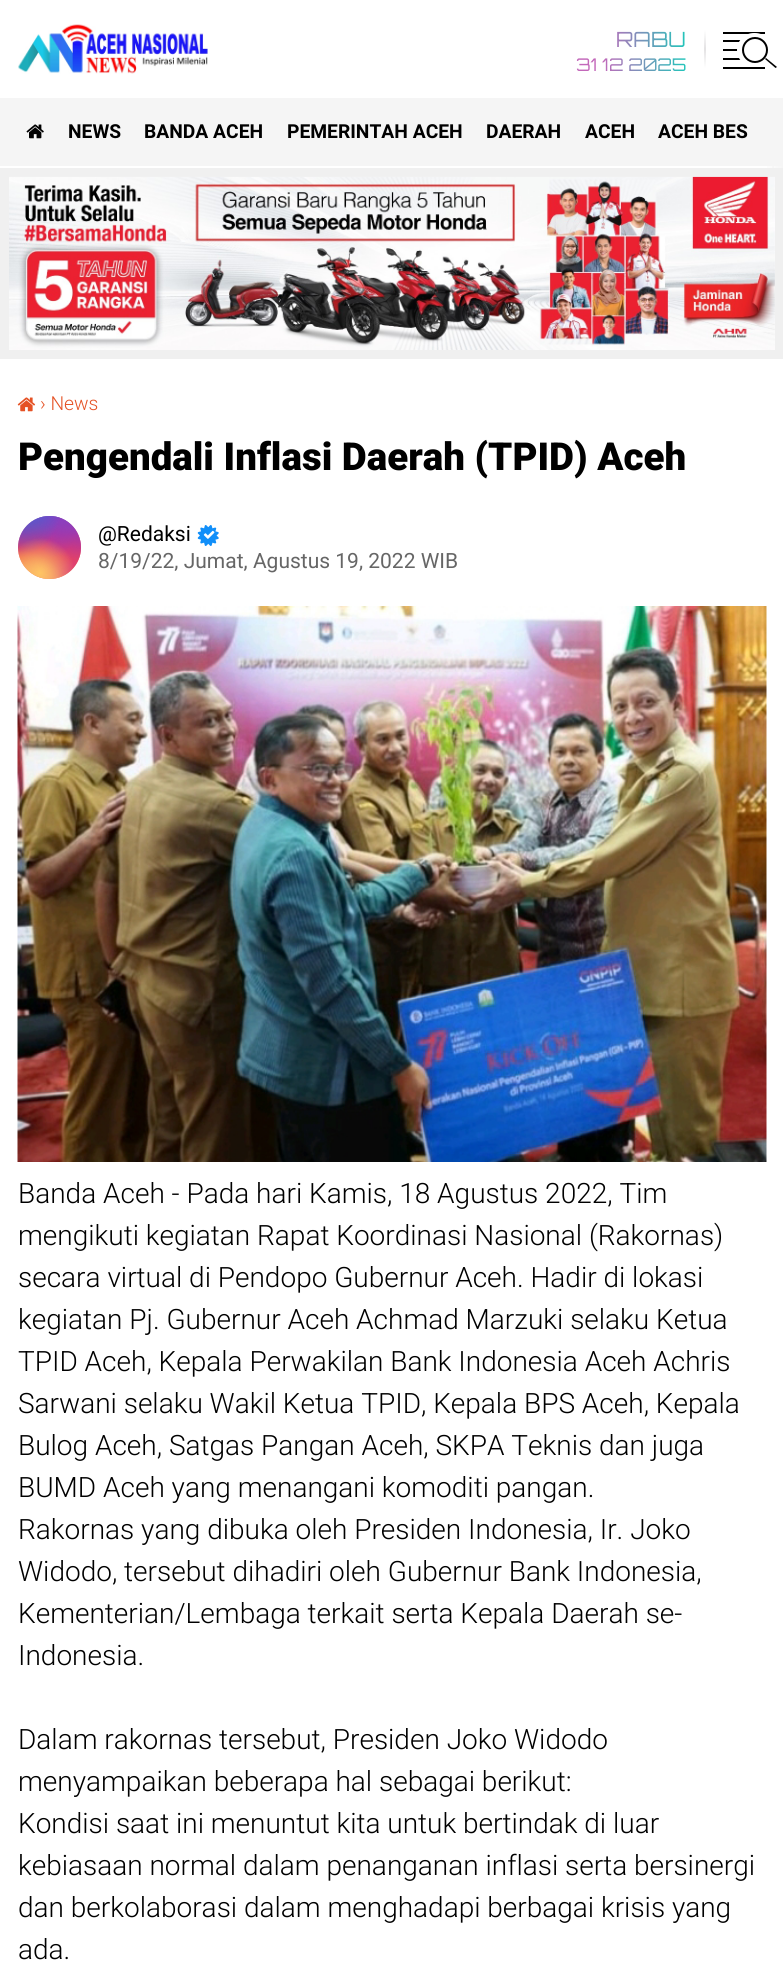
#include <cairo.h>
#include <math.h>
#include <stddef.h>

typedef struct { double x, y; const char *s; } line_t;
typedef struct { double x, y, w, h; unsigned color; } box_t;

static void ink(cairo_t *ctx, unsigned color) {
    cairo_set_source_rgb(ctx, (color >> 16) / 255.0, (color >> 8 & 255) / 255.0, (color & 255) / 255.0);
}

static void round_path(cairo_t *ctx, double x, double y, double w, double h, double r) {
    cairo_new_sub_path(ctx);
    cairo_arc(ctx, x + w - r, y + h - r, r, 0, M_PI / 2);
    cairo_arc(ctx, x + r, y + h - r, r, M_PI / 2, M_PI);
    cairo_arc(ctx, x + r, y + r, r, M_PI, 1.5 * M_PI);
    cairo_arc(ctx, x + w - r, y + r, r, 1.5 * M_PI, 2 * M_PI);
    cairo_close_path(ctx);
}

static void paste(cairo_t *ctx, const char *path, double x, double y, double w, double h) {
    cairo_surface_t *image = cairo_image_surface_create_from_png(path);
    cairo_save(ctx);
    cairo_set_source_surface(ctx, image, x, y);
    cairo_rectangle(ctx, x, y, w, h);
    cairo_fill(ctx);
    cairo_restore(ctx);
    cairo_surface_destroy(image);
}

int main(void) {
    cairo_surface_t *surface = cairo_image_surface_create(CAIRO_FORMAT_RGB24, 783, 1964);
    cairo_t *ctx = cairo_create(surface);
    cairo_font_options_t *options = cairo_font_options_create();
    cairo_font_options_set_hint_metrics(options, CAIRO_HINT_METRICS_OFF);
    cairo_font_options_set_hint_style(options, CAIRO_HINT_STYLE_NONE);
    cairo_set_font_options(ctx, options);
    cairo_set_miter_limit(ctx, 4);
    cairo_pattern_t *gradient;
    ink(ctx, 0xFFFFFF);
    cairo_paint(ctx);
    paste(ctx, "media/1.png", 18, 24, 190, 50);
    cairo_select_font_face(ctx, "Orbitron", CAIRO_FONT_SLANT_NORMAL, CAIRO_FONT_WEIGHT_NORMAL);
    cairo_set_font_size(ctx, 21);
    gradient = cairo_pattern_create_linear(558, 49, 704, 49);
    cairo_pattern_add_color_stop_rgba(gradient, 0.3, 0.765, 0.408, 0.729, 1);
    cairo_pattern_add_color_stop_rgba(gradient, 1, 0, 0.851, 0.729, 1);
    cairo_set_source(ctx, gradient);
    cairo_pattern_destroy(gradient);
    cairo_move_to(ctx, 616, 47);
    cairo_show_text(ctx, "RABU");
    cairo_set_font_size(ctx, 17.5);
    cairo_move_to(ctx, 576, 71);
    cairo_show_text(ctx, "31 12 2025");
    gradient = cairo_pattern_create_linear(704, 68, 704, 30);
    cairo_pattern_add_color_stop_rgba(gradient, 0, 1, 1, 1, 1);
    cairo_pattern_add_color_stop_rgba(gradient, 0.5, 0.89, 0.886, 0.89, 1);
    cairo_pattern_add_color_stop_rgba(gradient, 1, 1, 1, 1, 1);
    cairo_set_source(ctx, gradient);
    cairo_pattern_destroy(gradient);
    cairo_rectangle(ctx, 704, 30, 2, 38);
    cairo_fill(ctx);
    {
        static const box_t items[] = {
            {723, 32, 42, 2, 0x000000},
            {723, 40, 18, 2, 0x000000},
            {723, 49, 15, 2, 0x000000},
            {723, 58, 18, 2, 0x000000},
        };
        for (size_t i = 0; i < sizeof items / sizeof *items; i++) {
            ink(ctx, items[i].color);
            cairo_rectangle(ctx, items[i].x, items[i].y, items[i].w, items[i].h);
            cairo_fill(ctx);
        }
    }
    ink(ctx, 0xFFFFFF);
    round_path(ctx, 737, 33, 35, 34, 17);
    cairo_fill(ctx);
    cairo_arc(ctx, 755, 50, 12, 0, 2 * M_PI);
    ink(ctx, 0x000000);
    cairo_stroke(ctx);
    cairo_new_path(ctx);
    cairo_move_to(ctx, 765, 59);
    cairo_line_to(ctx, 766, 58);
    cairo_line_to(ctx, 777, 67);
    cairo_line_to(ctx, 775.5, 68);
    cairo_close_path(ctx);
    cairo_fill(ctx);
    cairo_rectangle(ctx, 723, 67, 42, 2);
    cairo_fill(ctx);
    ink(ctx, 0xF5F5F5);
    cairo_rectangle(ctx, 0, 98, 783, 68);
    cairo_fill(ctx);
    paste(ctx, "media/2.png", 26, 124, 18, 15);
    gradient = cairo_pattern_create_linear(749, 133, 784, 133);
    cairo_pattern_add_color_stop_rgba(gradient, 0, 0.961, 0.961, 0.961, 0.1);
    cairo_pattern_add_color_stop_rgba(gradient, 0.5, 0.961, 0.961, 0.961, 0.2);
    cairo_pattern_add_color_stop_rgba(gradient, 1, 0.961, 0.961, 0.961, 1);
    cairo_set_source(ctx, gradient);
    cairo_pattern_destroy(gradient);
    cairo_rectangle(ctx, 767, 166, 16, 2);
    cairo_fill(ctx);
    cairo_select_font_face(ctx, "Roboto", CAIRO_FONT_SLANT_NORMAL, CAIRO_FONT_WEIGHT_BOLD);
    cairo_set_font_size(ctx, 19.25);
    ink(ctx, 0x000000);
    cairo_move_to(ctx, 68, 138);
    cairo_show_text(ctx, "NEWS");
    gradient = cairo_pattern_create_linear(749, 133, 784, 133);
    cairo_pattern_add_color_stop_rgba(gradient, 0, 0.961, 0.961, 0.961, 0.1);
    cairo_pattern_add_color_stop_rgba(gradient, 0.5, 0.961, 0.961, 0.961, 0.2);
    cairo_pattern_add_color_stop_rgba(gradient, 1, 0.961, 0.961, 0.961, 1);
    cairo_set_source(ctx, gradient);
    cairo_pattern_destroy(gradient);
    cairo_rectangle(ctx, 772, 166, 2, 2);
    cairo_fill(ctx);
    ink(ctx, 0x000000);
    {
        static const line_t items[] = {
            {144, 138, "BANDA ACEH"},
            {287, 138, "PEMERINTAH ACEH"},
            {486, 138, "DAERAH"},
            {585, 138, "ACEH"},
            {658, 138, "ACEH BES"},
        };
        for (size_t i = 0; i < sizeof items / sizeof *items; i++) {
            cairo_move_to(ctx, items[i].x, items[i].y);
            cairo_show_text(ctx, items[i].s);
        }
    }
    ink(ctx, 0xF0F0F0);
    cairo_rectangle(ctx, 0, 168, 783, 191);
    cairo_fill(ctx);
    paste(ctx, "media/3.png", 9, 176, 766, 174);
    paste(ctx, "media/4.png", 17, 397, 19, 15);
    cairo_select_font_face(ctx, "Roboto Light", CAIRO_FONT_SLANT_NORMAL, CAIRO_FONT_WEIGHT_NORMAL);
    ink(ctx, 0xE55225);
    cairo_move_to(ctx, 40, 410);
    cairo_show_text(ctx, "› News");
    cairo_select_font_face(ctx, "Roboto Black", CAIRO_FONT_SLANT_NORMAL, CAIRO_FONT_WEIGHT_NORMAL);
    cairo_set_font_size(ctx, 38.5);
    ink(ctx, 0x000000);
    cairo_move_to(ctx, 18, 470);
    cairo_show_text(ctx, "Pengendali Inflasi Daerah (TPID) Aceh");
    paste(ctx, "media/7.png", 17, 605, 750, 557);
    ink(ctx, 0xFFFFFF);
    cairo_rectangle(ctx, 18, 605, 749, 1);
    cairo_fill(ctx);
    gradient = cairo_pattern_create_linear(49, 516, 49, 579);
    cairo_pattern_add_color_stop_rgba(gradient, 0, 0.396, 0.349, 0.792, 1);
    cairo_pattern_add_color_stop_rgba(gradient, 0.3, 0.737, 0.192, 0.561, 1);
    cairo_pattern_add_color_stop_rgba(gradient, 0.5, 0.89, 0.247, 0.373, 1);
    cairo_pattern_add_color_stop_rgba(gradient, 0.7, 0.969, 0.463, 0.22, 1);
    cairo_pattern_add_color_stop_rgba(gradient, 1, 0.996, 0.776, 0.427, 1);
    cairo_set_source(ctx, gradient);
    cairo_pattern_destroy(gradient);
    cairo_arc(ctx, 49.5, 547.5, 31.5, 0, 2 * M_PI);
    cairo_fill(ctx);
    gradient = cairo_pattern_create_radial(81, 579, 0, 81, 579, 89);
    cairo_pattern_add_color_stop_rgba(gradient, 0, 0.851, 0.192, 0.478, 1);
    cairo_pattern_add_color_stop_rgba(gradient, 1, 0.851, 0.192, 0.478, 0);
    cairo_set_source(ctx, gradient);
    cairo_pattern_destroy(gradient);
    cairo_arc(ctx, 49.5, 547.5, 31.5, 0, 2 * M_PI);
    cairo_fill(ctx);
    gradient = cairo_pattern_create_radial(0, 0, 0, 0, 0, 1);
    cairo_pattern_set_matrix(gradient, &(cairo_matrix_t){1.0 / 53, 0, 0, 1.0 / 107, -1.0 * 55 / 53, -1.0 * 504 / 107});
    cairo_pattern_add_color_stop_rgba(gradient, 0, 0.537, 0.239, 0.761, 1);
    cairo_pattern_add_color_stop_rgba(gradient, 0.5, 0.537, 0.239, 0.761, 0);
    cairo_set_source(ctx, gradient);
    cairo_pattern_destroy(gradient);
    cairo_arc(ctx, 49.5, 547.5, 31.5, 0, 2 * M_PI);
    cairo_fill(ctx);
    gradient = cairo_pattern_create_radial(81, 516, 0, 81, 516, 89);
    cairo_pattern_add_color_stop_rgba(gradient, 0, 0.537, 0.239, 0.761, 1);
    cairo_pattern_add_color_stop_rgba(gradient, 0.5, 0.537, 0.239, 0.761, 0);
    cairo_set_source(ctx, gradient);
    cairo_pattern_destroy(gradient);
    cairo_arc(ctx, 49.5, 547.5, 31.5, 0, 2 * M_PI);
    cairo_fill(ctx);
    gradient = cairo_pattern_create_radial(0, 0, 0, 0, 0, 1);
    cairo_pattern_set_matrix(gradient, &(cairo_matrix_t){1.0 / 71, 0, 0, 1.0 / 134, -1.0 * 30 / 71, -1.0 * 485 / 134});
    cairo_pattern_add_color_stop_rgba(gradient, 0, 0.322, 0.345, 0.812, 1);
    cairo_pattern_add_color_stop_rgba(gradient, 0.5, 0.322, 0.345, 0.812, 0);
    cairo_set_source(ctx, gradient);
    cairo_pattern_destroy(gradient);
    cairo_arc(ctx, 49.5, 547.5, 31.5, 0, 2 * M_PI);
    cairo_fill(ctx);
    gradient = cairo_pattern_create_radial(0, 0, 0, 0, 0, 1);
    cairo_pattern_set_matrix(gradient, &(cairo_matrix_t){1.0 / 89, 0, 0, 1.0 / 111, -1.0 * 18 / 89, -1.0 * 501 / 111});
    cairo_pattern_add_color_stop_rgba(gradient, 0, 0.322, 0.345, 0.812, 1);
    cairo_pattern_add_color_stop_rgba(gradient, 0.5, 0.322, 0.345, 0.812, 0);
    cairo_set_source(ctx, gradient);
    cairo_pattern_destroy(gradient);
    cairo_arc(ctx, 49.5, 547.5, 31.5, 0, 2 * M_PI);
    cairo_fill(ctx);
    gradient = cairo_pattern_create_radial(18, 604, 0, 18, 604, 108);
    cairo_pattern_add_color_stop_rgba(gradient, 0, 0.996, 0.773, 0.392, 1);
    cairo_pattern_add_color_stop_rgba(gradient, 0.5, 0.996, 0.773, 0.392, 0);
    cairo_set_source(ctx, gradient);
    cairo_pattern_destroy(gradient);
    cairo_arc(ctx, 49.5, 547.5, 31.5, 0, 2 * M_PI);
    cairo_fill(ctx);
    gradient = cairo_pattern_create_radial(40, 573, 0, 40, 573, 70);
    cairo_pattern_add_color_stop_rgba(gradient, 0, 0.996, 0.773, 0.392, 1);
    cairo_pattern_add_color_stop_rgba(gradient, 0.5, 0.996, 0.773, 0.392, 0);
    cairo_set_source(ctx, gradient);
    cairo_pattern_destroy(gradient);
    cairo_arc(ctx, 49.5, 547.5, 31.5, 0, 2 * M_PI);
    cairo_fill(ctx);
    cairo_select_font_face(ctx, "Roboto", CAIRO_FONT_SLANT_NORMAL, CAIRO_FONT_WEIGHT_NORMAL);
    cairo_set_font_size(ctx, 21);
    ink(ctx, 0x000000);
    cairo_move_to(ctx, 98, 541);
    cairo_show_text(ctx, "@Redaksi");
    paste(ctx, "media/5.png", 197, 525, 22, 21);
    paste(ctx, "media/6.png", 203, 530, 12, 9);
    ink(ctx, 0x666666);
    cairo_move_to(ctx, 98, 568);
    cairo_show_text(ctx, "8/19/22, Jumat, Agustus 19, 2022 WIB");
    cairo_select_font_face(ctx, "Roboto Light", CAIRO_FONT_SLANT_NORMAL, CAIRO_FONT_WEIGHT_NORMAL);
    cairo_set_font_size(ctx, 28);
    ink(ctx, 0x000000);
    {
        static const line_t items[] = {
            {18, 1203, "Banda Aceh - Pada hari Kamis, 18 Agustus 2022, Tim"},
            {18, 1245, "mengikuti kegiatan Rapat Koordinasi Nasional (Rakornas)"},
            {18, 1287, "secara virtual di Pendopo Gubernur Aceh. Hadir di lokasi"},
            {18, 1329, "kegiatan Pj. Gubernur Aceh Achmad Marzuki selaku Ketua"},
            {18, 1371, "TPID Aceh, Kepala Perwakilan Bank Indonesia Aceh Achris"},
            {18, 1413, "Sarwani selaku Wakil Ketua TPID, Kepala BPS Aceh, Kepala"},
            {18, 1455, "Bulog Aceh, Satgas Pangan Aceh, SKPA Teknis dan juga"},
            {18, 1497, "BUMD Aceh yang menangani komoditi pangan."},
            {18, 1539, "Rakornas yang dibuka oleh Presiden Indonesia, Ir. Joko"},
            {18, 1581, "Widodo, tersebut dihadiri oleh Gubernur Bank Indonesia,"},
            {18, 1623, "Kementerian/Lembaga terkait serta Kepala Daerah se-"},
            {18, 1665, "Indonesia."},
            {18, 1749, "Dalam rakornas tersebut, Presiden Joko Widodo"},
            {18, 1791, "menyampaikan beberapa hal sebagai berikut:"},
            {18, 1833, "Kondisi saat ini menuntut kita untuk bertindak di luar"},
            {18, 1875, "kebiasaan normal dalam penanganan inflasi serta bersinergi"},
            {18, 1917, "dan berkolaborasi dalam menghadapi berbagai krisis yang"},
            {18, 1959, "ada."},
        };
        for (size_t i = 0; i < sizeof items / sizeof *items; i++) {
            cairo_move_to(ctx, items[i].x, items[i].y);
            cairo_show_text(ctx, items[i].s);
        }
    }
    cairo_surface_write_to_png(surface, "image.png");
    cairo_font_options_destroy(options);
    cairo_destroy(ctx);
    cairo_surface_destroy(surface);
    return 0;
}
